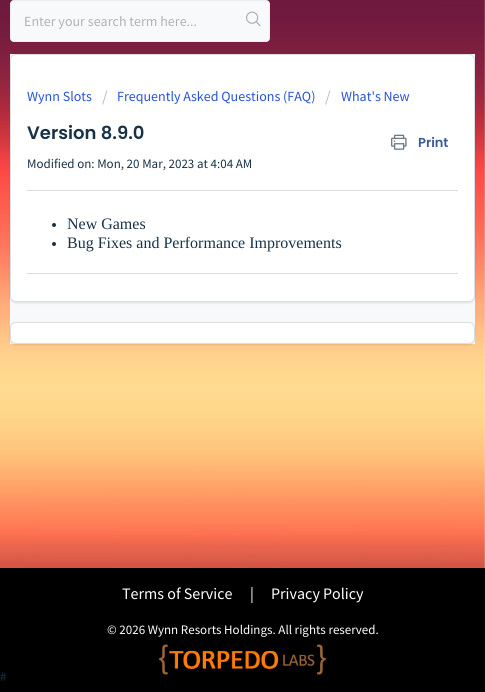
#include <cairo.h>
#include <math.h>
#include <stddef.h>

typedef struct { double x, y; const char *s; } line_t;

static void ink(cairo_t *ctx, unsigned color) {
    cairo_set_source_rgb(ctx, (color >> 16) / 255.0, (color >> 8 & 255) / 255.0, (color & 255) / 255.0);
}

static void round_path(cairo_t *ctx, double x, double y, double w, double h, double r) {
    cairo_new_sub_path(ctx);
    cairo_arc(ctx, x + w - r, y + h - r, r, 0, M_PI / 2);
    cairo_arc(ctx, x + r, y + h - r, r, M_PI / 2, M_PI);
    cairo_arc(ctx, x + r, y + r, r, M_PI, 1.5 * M_PI);
    cairo_arc(ctx, x + w - r, y + r, r, 1.5 * M_PI, 2 * M_PI);
    cairo_close_path(ctx);
}

static void blur_box(cairo_t *ctx, double x, double y, double w, double h, double r, double blur, double alpha) {
    cairo_push_group_with_content(ctx, CAIRO_CONTENT_ALPHA);
    cairo_set_operator(ctx, CAIRO_OPERATOR_SOURCE);
    for (int i = 15; i >= -15 && fmin(w, h) + blur * i / 3 > 0; i -= 2) {
        double e = blur * i / 6;
        cairo_set_source_rgba(ctx, 0, 0, 0, alpha * erfc((i - 1) / 8.5) / 2);
        round_path(ctx, x - e, y - e, w + 2 * e, h + 2 * e, fmax(0, fmin(r + e + blur * .6, fmin(w, h) / 2 + e)));
        cairo_fill(ctx);
    }
    cairo_pattern_t *soft = cairo_pop_group(ctx);
    cairo_mask(ctx, soft);
    cairo_pattern_destroy(soft);
}

static void paste(cairo_t *ctx, const char *path, double x, double y, double w, double h) {
    cairo_surface_t *image = cairo_image_surface_create_from_png(path);
    cairo_save(ctx);
    cairo_set_source_surface(ctx, image, x, y);
    cairo_rectangle(ctx, x, y, w, h);
    cairo_fill(ctx);
    cairo_restore(ctx);
    cairo_surface_destroy(image);
}

int main(void) {
    cairo_surface_t *surface = cairo_image_surface_create(CAIRO_FORMAT_RGB24, 485, 692);
    cairo_t *ctx = cairo_create(surface);
    cairo_font_options_t *options = cairo_font_options_create();
    cairo_font_options_set_hint_metrics(options, CAIRO_HINT_METRICS_OFF);
    cairo_font_options_set_hint_style(options, CAIRO_HINT_STYLE_NONE);
    cairo_set_font_options(ctx, options);
    cairo_set_miter_limit(ctx, 4);
    ink(ctx, 0xFFFFFF);
    cairo_paint(ctx);
    paste(ctx, "media/1.png", 0, 0, 485, 568);
    ink(ctx, 0xF8F9FA);
    round_path(ctx, 10.5, 0.5, 259, 41, 3.5);
    cairo_fill_preserve(ctx);
    ink(ctx, 0xEBEEF0);
    cairo_set_line_width(ctx, 1);
    cairo_stroke(ctx);
    cairo_select_font_face(ctx, "Source Sans Pro", CAIRO_FONT_SLANT_NORMAL, CAIRO_FONT_WEIGHT_NORMAL);
    cairo_set_font_size(ctx, 14);
    ink(ctx, 0xB2B2B2);
    cairo_move_to(ctx, 24, 26);
    cairo_show_text(ctx, "Enter your search term here...");
    paste(ctx, "media/2.png", 246, 11, 15, 15);
    ink(ctx, 0xF8F9FA);
    cairo_rectangle(ctx, 10, 54, 465, 290);
    cairo_fill(ctx);
    ink(ctx, 0x3F3F44);
    blur_box(ctx, 10, 55, 465, 248, 6, 1, 0.15);
    ink(ctx, 0xFFFFFF);
    round_path(ctx, 10.5, 54.5, 464, 247, 5.5);
    cairo_fill_preserve(ctx);
    ink(ctx, 0xDADFE3);
    cairo_stroke(ctx);
    ink(ctx, 0x2753D7);
    cairo_move_to(ctx, 27, 101);
    cairo_show_text(ctx, "Wynn Slots");
    cairo_set_font_size(ctx, 16);
    ink(ctx, 0xBBBBBB);
    cairo_move_to(ctx, 102, 102);
    cairo_show_text(ctx, "/");
    cairo_set_font_size(ctx, 14);
    ink(ctx, 0x2753D7);
    cairo_move_to(ctx, 117, 101);
    cairo_show_text(ctx, "Frequently Asked Questions (FAQ)");
    cairo_set_font_size(ctx, 16);
    ink(ctx, 0xBBBBBB);
    cairo_move_to(ctx, 325, 102);
    cairo_show_text(ctx, "/");
    cairo_set_font_size(ctx, 14);
    ink(ctx, 0x2753D7);
    cairo_move_to(ctx, 341, 101);
    cairo_show_text(ctx, "What's New");
    cairo_select_font_face(ctx, "Poppins SemiBold", CAIRO_FONT_SLANT_NORMAL, CAIRO_FONT_WEIGHT_NORMAL);
    cairo_set_font_size(ctx, 18);
    ink(ctx, 0x183247);
    cairo_move_to(ctx, 27, 139);
    cairo_show_text(ctx, "Version 8.9.0");
    paste(ctx, "media/3.png", 391, 134, 16, 16);
    cairo_set_font_size(ctx, 13);
    ink(ctx, 0x3B5998);
    cairo_move_to(ctx, 418, 147);
    cairo_show_text(ctx, "Print");
    cairo_select_font_face(ctx, "Source Sans Pro", CAIRO_FONT_SLANT_NORMAL, CAIRO_FONT_WEIGHT_NORMAL);
    ink(ctx, 0x183247);
    cairo_move_to(ctx, 27, 168);
    cairo_show_text(ctx, "Modified on: Mon, 20 Mar, 2023 at 4:04 AM");
    ink(ctx, 0xDCDCDC);
    cairo_rectangle(ctx, 27, 190, 431, 1);
    cairo_fill(ctx);
    ink(ctx, 0x183247);
    cairo_arc(ctx, 54, 225, 2, 0, 2 * M_PI);
    cairo_fill(ctx);
    cairo_select_font_face(ctx, "Liberation Serif", CAIRO_FONT_SLANT_NORMAL, CAIRO_FONT_WEIGHT_NORMAL);
    cairo_set_font_size(ctx, 16);
    cairo_move_to(ctx, 67, 229);
    cairo_show_text(ctx, "New Games");
    cairo_new_path(ctx);
    cairo_arc(ctx, 54, 244, 2, 0, 2 * M_PI);
    cairo_fill(ctx);
    cairo_move_to(ctx, 67, 248);
    cairo_show_text(ctx, "Bug Fixes and Performance Improvements");
    ink(ctx, 0xDCDCDC);
    cairo_rectangle(ctx, 27, 273, 431, 1);
    cairo_fill(ctx);
    ink(ctx, 0x3F3F44);
    blur_box(ctx, 10, 323, 465, 22, 6, 1, 0.15);
    ink(ctx, 0xFFFFFF);
    round_path(ctx, 10.5, 322.5, 464, 21, 5.5);
    cairo_fill_preserve(ctx);
    ink(ctx, 0xDADFE3);
    cairo_stroke(ctx);
    ink(ctx, 0x000000);
    cairo_rectangle(ctx, 0, 568, 485, 124);
    cairo_fill(ctx);
    cairo_select_font_face(ctx, "Source Sans Pro", CAIRO_FONT_SLANT_NORMAL, CAIRO_FONT_WEIGHT_NORMAL);
    ink(ctx, 0xFFFFFF);
    {
        static const line_t items[] = {
            {122, 599, "Terms of Service"},
            {250, 599, "|"},
            {271, 599, "Privacy Policy"},
        };
        for (size_t i = 0; i < sizeof items / sizeof *items; i++) {
            cairo_move_to(ctx, items[i].x, items[i].y);
            cairo_show_text(ctx, items[i].s);
        }
    }
    cairo_set_font_size(ctx, 13);
    cairo_move_to(ctx, 107, 634);
    cairo_show_text(ctx, "© 2026 Wynn Resorts Holdings. All rights reserved.");
    paste(ctx, "media/4.png", 159, 644, 167, 31);
    ink(ctx, 0x183247);
    cairo_move_to(ctx, 0, 681);
    cairo_show_text(ctx, "#");
    cairo_surface_write_to_png(surface, "image.png");
    cairo_font_options_destroy(options);
    cairo_destroy(ctx);
    cairo_surface_destroy(surface);
    return 0;
}
